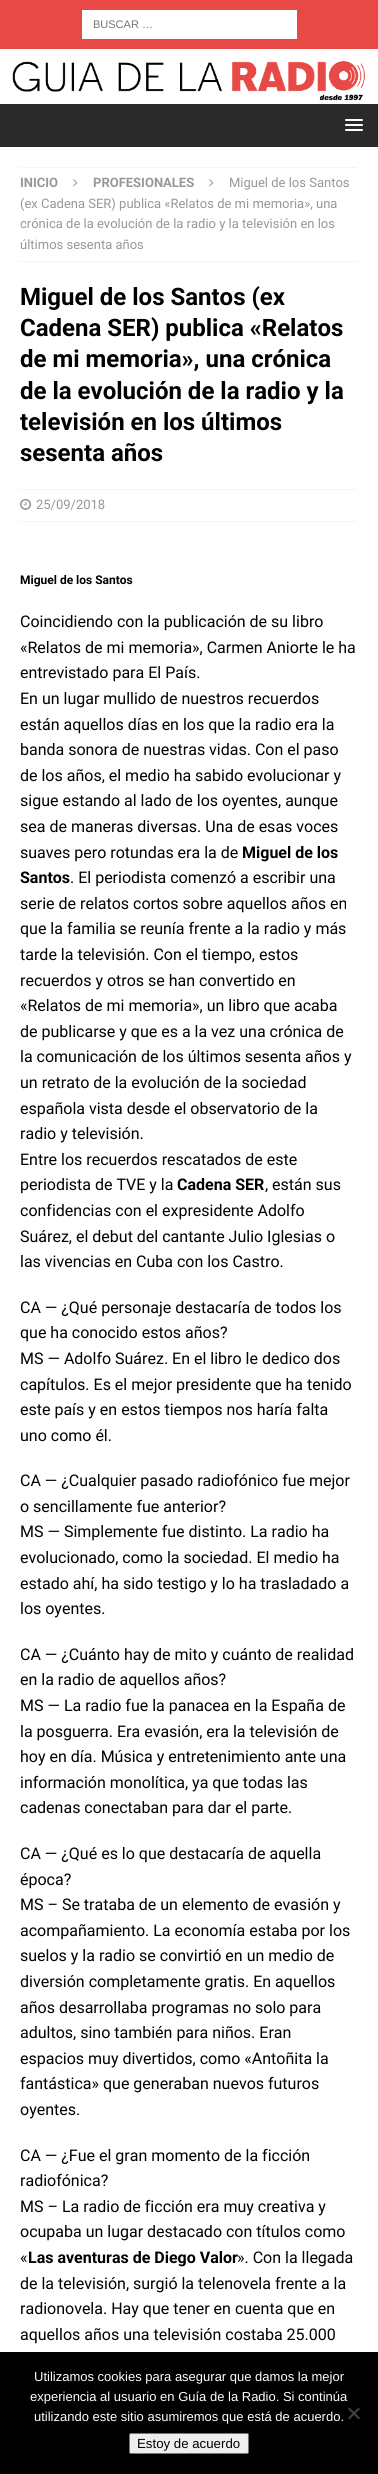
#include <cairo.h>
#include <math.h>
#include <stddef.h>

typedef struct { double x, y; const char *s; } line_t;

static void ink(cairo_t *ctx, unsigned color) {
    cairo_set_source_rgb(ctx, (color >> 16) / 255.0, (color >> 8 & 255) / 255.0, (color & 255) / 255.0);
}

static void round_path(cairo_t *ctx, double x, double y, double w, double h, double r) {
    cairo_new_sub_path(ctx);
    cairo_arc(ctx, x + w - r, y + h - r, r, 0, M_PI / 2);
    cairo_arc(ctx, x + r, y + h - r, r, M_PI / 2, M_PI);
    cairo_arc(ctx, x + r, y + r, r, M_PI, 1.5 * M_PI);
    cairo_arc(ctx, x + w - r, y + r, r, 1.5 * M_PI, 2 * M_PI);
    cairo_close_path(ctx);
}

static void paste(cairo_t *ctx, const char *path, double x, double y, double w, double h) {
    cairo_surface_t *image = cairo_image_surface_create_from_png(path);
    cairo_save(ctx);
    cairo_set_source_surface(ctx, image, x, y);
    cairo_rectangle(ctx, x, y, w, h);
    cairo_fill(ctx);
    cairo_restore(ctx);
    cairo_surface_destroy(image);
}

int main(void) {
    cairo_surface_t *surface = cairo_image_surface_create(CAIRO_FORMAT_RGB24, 378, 2474);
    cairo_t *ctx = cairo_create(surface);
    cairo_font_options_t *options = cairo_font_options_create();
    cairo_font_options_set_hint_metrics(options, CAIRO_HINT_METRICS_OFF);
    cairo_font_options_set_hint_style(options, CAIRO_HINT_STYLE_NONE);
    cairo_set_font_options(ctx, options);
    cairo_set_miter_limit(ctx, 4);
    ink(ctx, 0xFFFFFF);
    cairo_paint(ctx);
    ink(ctx, 0xE64946);
    cairo_rectangle(ctx, 0, 0, 378, 49);
    cairo_fill(ctx);
    ink(ctx, 0xFFFFFF);
    cairo_rectangle(ctx, 82, 10, 215, 29);
    cairo_fill(ctx);
    cairo_select_font_face(ctx, "Liberation Sans", CAIRO_FONT_SLANT_NORMAL, CAIRO_FONT_WEIGHT_NORMAL);
    cairo_set_font_size(ctx, 11);
    ink(ctx, 0x757575);
    cairo_move_to(ctx, 93, 28);
    cairo_show_text(ctx, "BUSCAR …");
    paste(ctx, "media/1.png", 12, 61, 353, 40);
    ink(ctx, 0x2A2A2A);
    cairo_rectangle(ctx, 0, 104, 378, 43);
    cairo_fill(ctx);
    ink(ctx, 0xFFFFFF);
    round_path(ctx, 345, 119, 18, 2, 1);
    cairo_fill(ctx);
    round_path(ctx, 345, 124, 18, 2, 1);
    cairo_fill(ctx);
    round_path(ctx, 345, 129, 18, 2, 1);
    cairo_fill(ctx);
    cairo_new_path(ctx);
    cairo_move_to(ctx, 20, 167.5);
    cairo_line_to(ctx, 358, 167.5);
    ink(ctx, 0xEBEBEB);
    cairo_set_line_width(ctx, 1);
    cairo_set_dash(ctx, (double[]){1, 1}, 2, 0);
    cairo_stroke(ctx);
    cairo_new_path(ctx);
    cairo_move_to(ctx, 20, 261.5);
    cairo_line_to(ctx, 358, 261.5);
    cairo_stroke(ctx);
    cairo_select_font_face(ctx, "Roboto", CAIRO_FONT_SLANT_NORMAL, CAIRO_FONT_WEIGHT_BOLD);
    cairo_set_font_size(ctx, 13);
    ink(ctx, 0x979797);
    cairo_move_to(ctx, 20, 187);
    cairo_show_text(ctx, "INICIO");
    paste(ctx, "media/2.png", 73, 179, 5, 8);
    cairo_move_to(ctx, 93, 187);
    cairo_show_text(ctx, "PROFESIONALES");
    paste(ctx, "media/2.png", 209, 179, 5, 8);
    cairo_select_font_face(ctx, "Roboto", CAIRO_FONT_SLANT_NORMAL, CAIRO_FONT_WEIGHT_NORMAL);
    {
        static const line_t items[] = {
            {229, 187, "Miguel de los Santos"},
            {20, 208, "(ex Cadena SER) publica «Relatos de mi memoria», una"},
            {20, 228, "crónica de la evolución de la radio y la televisión en los"},
            {20, 249, "últimos sesenta años"},
        };
        for (size_t i = 0; i < sizeof items / sizeof *items; i++) {
            cairo_move_to(ctx, items[i].x, items[i].y);
            cairo_show_text(ctx, items[i].s);
        }
    }
    cairo_select_font_face(ctx, "Roboto", CAIRO_FONT_SLANT_NORMAL, CAIRO_FONT_WEIGHT_BOLD);
    cairo_set_font_size(ctx, 24);
    ink(ctx, 0x000000);
    {
        static const line_t items[] = {
            {20, 305, "Miguel de los Santos (ex"},
            {20, 336, "Cadena SER) publica «Relatos"},
            {20, 367, "de mi memoria», una crónica"},
            {20, 399, "de la evolución de la radio y la"},
            {20, 430, "televisión en los últimos"},
            {20, 461, "sesenta años"},
        };
        for (size_t i = 0; i < sizeof items / sizeof *items; i++) {
            cairo_move_to(ctx, items[i].x, items[i].y);
            cairo_show_text(ctx, items[i].s);
        }
    }
    cairo_new_path(ctx);
    cairo_move_to(ctx, 20, 489.5);
    cairo_line_to(ctx, 358, 489.5);
    ink(ctx, 0xEBEBEB);
    cairo_stroke(ctx);
    cairo_new_path(ctx);
    cairo_move_to(ctx, 20, 521.5);
    cairo_line_to(ctx, 358, 521.5);
    cairo_stroke(ctx);
    paste(ctx, "media/3.png", 20, 498, 12, 12);
    cairo_select_font_face(ctx, "Roboto", CAIRO_FONT_SLANT_NORMAL, CAIRO_FONT_WEIGHT_NORMAL);
    cairo_set_font_size(ctx, 13);
    ink(ctx, 0x979797);
    cairo_move_to(ctx, 36, 509);
    cairo_show_text(ctx, "25/09/2018");
    cairo_select_font_face(ctx, "Roboto", CAIRO_FONT_SLANT_NORMAL, CAIRO_FONT_WEIGHT_BOLD);
    cairo_set_font_size(ctx, 12);
    ink(ctx, 0x000000);
    cairo_move_to(ctx, 20, 584);
    cairo_show_text(ctx, "Miguel de los Santos");
    cairo_select_font_face(ctx, "Roboto", CAIRO_FONT_SLANT_NORMAL, CAIRO_FONT_WEIGHT_NORMAL);
    cairo_set_font_size(ctx, 16);
    {
        static const line_t items[] = {
            {20, 627, "Coincidiendo con la publicación de su libro"},
            {20, 653, "«Relatos de mi memoria», Carmen Aniorte le ha"},
            {20, 678, "entrevistado para El País."},
            {20, 704, "En un lugar mullido de nuestros recuerdos"},
            {20, 730, "están aquellos días en los que la radio era la"},
            {20, 755, "banda sonora de nuestras vidas. Con el paso"},
            {20, 781, "de los años, el medio ha sabido evolucionar y"},
            {20, 806, "sigue estando al lado de los oyentes, aunque"},
            {20, 832, "sea de maneras diversas. Una de esas voces"},
            {20, 858, "suaves pero rotundas era la de"},
        };
        for (size_t i = 0; i < sizeof items / sizeof *items; i++) {
            cairo_move_to(ctx, items[i].x, items[i].y);
            cairo_show_text(ctx, items[i].s);
        }
    }
    cairo_select_font_face(ctx, "Roboto", CAIRO_FONT_SLANT_NORMAL, CAIRO_FONT_WEIGHT_BOLD);
    cairo_move_to(ctx, 242, 858);
    cairo_show_text(ctx, "Miguel de los");
    cairo_move_to(ctx, 20, 883);
    cairo_show_text(ctx, "Santos");
    cairo_select_font_face(ctx, "Roboto", CAIRO_FONT_SLANT_NORMAL, CAIRO_FONT_WEIGHT_NORMAL);
    {
        static const line_t items[] = {
            {70, 883, ". El periodista comenzó a escribir una"},
            {20, 909, "serie de relatos cortos sobre aquellos años en"},
            {20, 934, "que la familia se reunía frente a la radio y más"},
            {20, 960, "tarde la televisión. Con el tiempo, estos"},
            {20, 986, "recuerdos y otros se han convertido en"},
            {20, 1011, "«Relatos de mi memoria», un libro que acaba"},
            {20, 1037, "de publicarse y que es a la vez una crónica de"},
            {20, 1062, "la comunicación de los últimos sesenta años y"},
            {20, 1088, "un retrato de la evolución de la sociedad"},
            {20, 1114, "española vista desde el observatorio de la"},
            {20, 1139, "radio y televisión."},
            {20, 1165, "Entre los recuerdos rescatados de este"},
            {20, 1190, "periodista de TVE y la"},
        };
        for (size_t i = 0; i < sizeof items / sizeof *items; i++) {
            cairo_move_to(ctx, items[i].x, items[i].y);
            cairo_show_text(ctx, items[i].s);
        }
    }
    cairo_select_font_face(ctx, "Roboto", CAIRO_FONT_SLANT_NORMAL, CAIRO_FONT_WEIGHT_BOLD);
    cairo_move_to(ctx, 177, 1190);
    cairo_show_text(ctx, "Cadena SER");
    cairo_select_font_face(ctx, "Roboto", CAIRO_FONT_SLANT_NORMAL, CAIRO_FONT_WEIGHT_NORMAL);
    {
        static const line_t items[] = {
            {265, 1190, ", están sus"},
            {20, 1216, "confidencias con el expresidente Adolfo"},
            {20, 1242, "Suárez, el debut del cantante Julio Iglesias o"},
            {20, 1267, "las vivencias en Cuba con los Castro."},
            {20, 1313, "CA — ¿Qué personaje destacaría de todos los"},
            {20, 1338, "que ha conocido estos años?"},
            {20, 1364, "MS — Adolfo Suárez. En el libro le dedico dos"},
            {20, 1390, "capítulos. Es el mejor presidente que ha tenido"},
            {20, 1415, "este país y en estos tiempos nos haría falta"},
            {20, 1441, "uno como él."},
            {20, 1486, "CA — ¿Cualquier pasado radiofónico fue mejor"},
            {20, 1512, "o sencillamente fue anterior?"},
            {20, 1537, "MS — Simplemente fue distinto. La radio ha"},
            {20, 1563, "evolucionado, como la sociedad. El medio ha"},
            {20, 1589, "estado ahí, ha sido testigo y lo ha trasladado a"},
            {20, 1614, "los oyentes."},
            {20, 1660, "CA — ¿Cuánto hay de mito y cuánto de realidad"},
            {20, 1685, "en la radio de aquellos años?"},
            {20, 1711, "MS — La radio fue la panacea en la España de"},
            {20, 1737, "la posguerra. Era evasión, era la televisión de"},
            {20, 1762, "hoy en día. Música y entretenimiento ante una"},
            {20, 1788, "información monolítica, ya que todas las"},
            {20, 1813, "cadenas conectaban para dar el parte."},
            {20, 1859, "CA — ¿Qué es lo que destacaría de aquella"},
            {20, 1885, "época?"},
            {20, 1910, "MS – Se trataba de un elemento de evasión y"},
            {20, 1936, "acompañamiento. La economía estaba por los"},
            {20, 1961, "suelos y la radio se convirtió en un medio de"},
            {20, 1987, "diversión completamente gratis. En aquellos"},
            {20, 2013, "años desarrollaba programas no solo para"},
            {20, 2038, "adultos, sino también para niños. Eran"},
            {20, 2064, "espacios muy divertidos, como «Antoñita la"},
            {20, 2089, "fantástica» que generaban nuevos futuros"},
            {20, 2115, "oyentes."},
            {20, 2161, "CA — ¿Fue el gran momento de la ficción"},
            {20, 2186, "radiofónica?"},
            {20, 2212, "MS – La radio de ficción era muy creativa y"},
            {20, 2237, "ocupaba un lugar destacado con títulos como"},
            {20, 2263, "«"},
        };
        for (size_t i = 0; i < sizeof items / sizeof *items; i++) {
            cairo_move_to(ctx, items[i].x, items[i].y);
            cairo_show_text(ctx, items[i].s);
        }
    }
    cairo_select_font_face(ctx, "Roboto", CAIRO_FONT_SLANT_NORMAL, CAIRO_FONT_WEIGHT_BOLD);
    cairo_move_to(ctx, 28, 2263);
    cairo_show_text(ctx, "Las aventuras de Diego Valor");
    cairo_select_font_face(ctx, "Roboto", CAIRO_FONT_SLANT_NORMAL, CAIRO_FONT_WEIGHT_NORMAL);
    {
        static const line_t items[] = {
            {237, 2263, "». Con la llegada"},
            {20, 2289, "de la televisión, surgió la telenovela frente a la"},
            {20, 2314, "radionovela. Hay que tener en cuenta que en"},
            {20, 2340, "aquellos años una televisión costaba 25.000"},
        };
        for (size_t i = 0; i < sizeof items / sizeof *items; i++) {
            cairo_move_to(ctx, items[i].x, items[i].y);
            cairo_show_text(ctx, items[i].s);
        }
    }
    cairo_rectangle(ctx, 0, 2352, 378, 122);
    cairo_fill(ctx);
    cairo_select_font_face(ctx, "Liberation Sans", CAIRO_FONT_SLANT_NORMAL, CAIRO_FONT_WEIGHT_NORMAL);
    cairo_set_font_size(ctx, 13);
    ink(ctx, 0xFFFFFF);
    {
        static const line_t items[] = {
            {34, 2381, "Utilizamos cookies para asegurar que damos la mejor"},
            {30, 2401, "experiencia al usuario en Guía de la Radio. Si continúa"},
            {34, 2421, "utilizando este sitio asumiremos que está de acuerdo."},
        };
        for (size_t i = 0; i < sizeof items / sizeof *items; i++) {
            cairo_move_to(ctx, items[i].x, items[i].y);
            cairo_show_text(ctx, items[i].s);
        }
    }
    ink(ctx, 0x404040);
    cairo_new_path(ctx);
    cairo_move_to(ctx, 358.5, 2407.5);
    cairo_line_to(ctx, 360, 2409);
    cairo_line_to(ctx, 349.5, 2419.5);
    cairo_line_to(ctx, 348, 2418);
    cairo_close_path(ctx);
    cairo_fill(ctx);
    cairo_new_path(ctx);
    cairo_move_to(ctx, 348, 2409);
    cairo_line_to(ctx, 349.5, 2407.5);
    cairo_line_to(ctx, 360, 2418);
    cairo_line_to(ctx, 358.5, 2419.5);
    cairo_close_path(ctx);
    cairo_fill(ctx);
    ink(ctx, 0xEFEFEF);
    round_path(ctx, 129.5, 2433.5, 119, 20, 1.5);
    cairo_fill_preserve(ctx);
    ink(ctx, 0x767676);
    cairo_set_dash(ctx, NULL, 0, 0);
    cairo_stroke(ctx);
    cairo_set_font_size(ctx, 13.25);
    ink(ctx, 0x000000);
    cairo_move_to(ctx, 137, 2448);
    cairo_show_text(ctx, "Estoy de acuerdo");
    cairo_surface_write_to_png(surface, "image.png");
    cairo_font_options_destroy(options);
    cairo_destroy(ctx);
    cairo_surface_destroy(surface);
    return 0;
}
